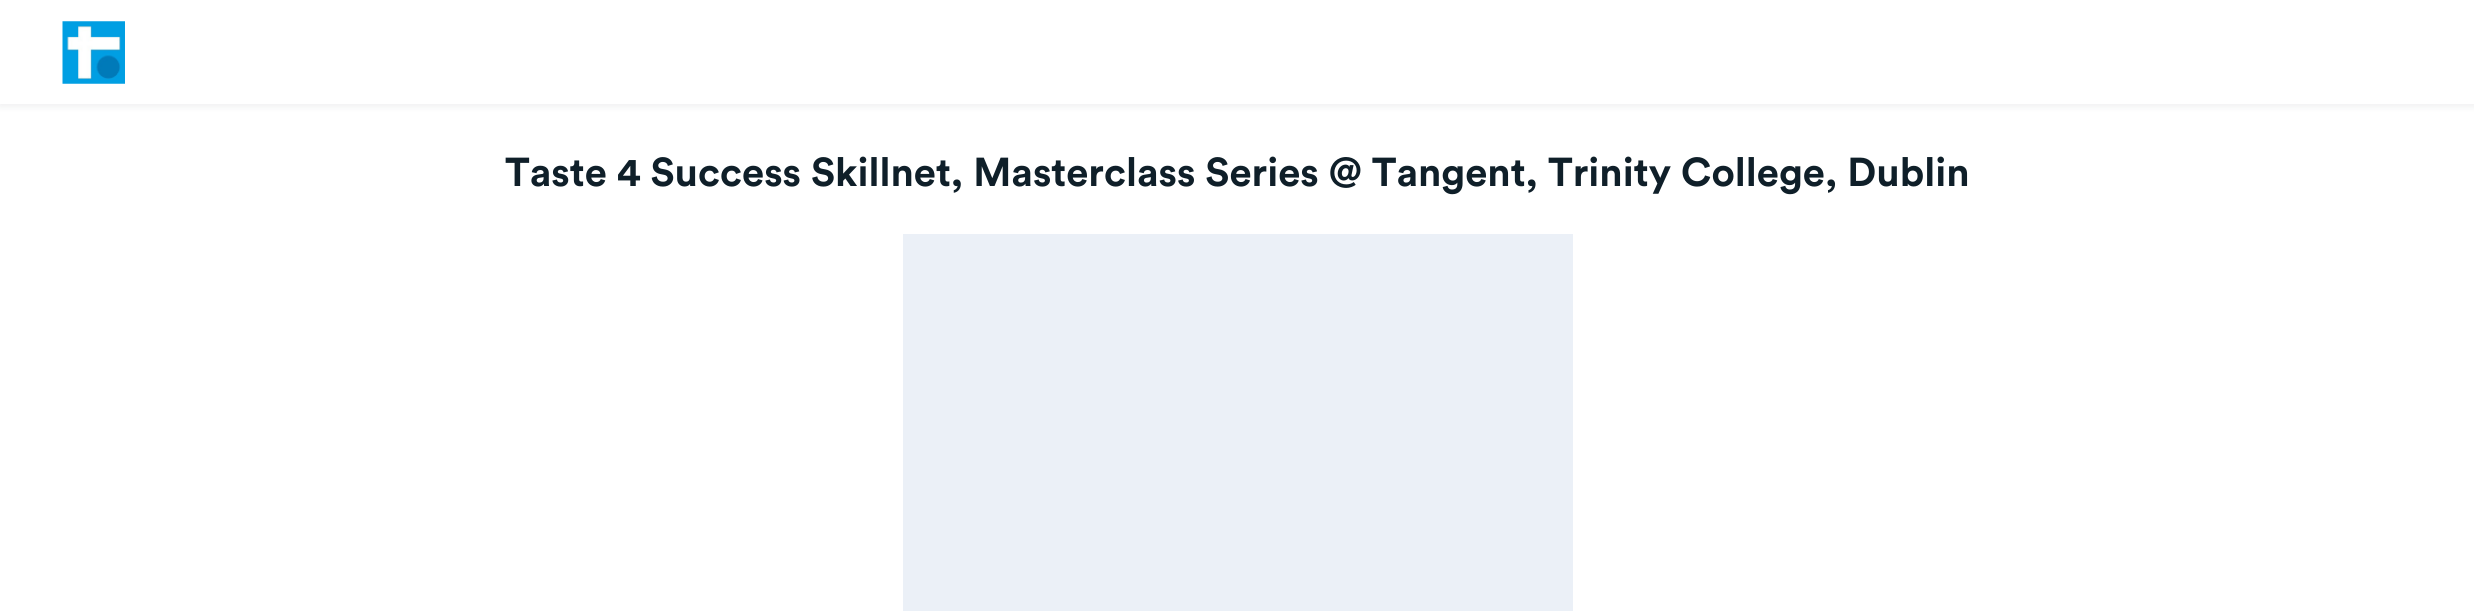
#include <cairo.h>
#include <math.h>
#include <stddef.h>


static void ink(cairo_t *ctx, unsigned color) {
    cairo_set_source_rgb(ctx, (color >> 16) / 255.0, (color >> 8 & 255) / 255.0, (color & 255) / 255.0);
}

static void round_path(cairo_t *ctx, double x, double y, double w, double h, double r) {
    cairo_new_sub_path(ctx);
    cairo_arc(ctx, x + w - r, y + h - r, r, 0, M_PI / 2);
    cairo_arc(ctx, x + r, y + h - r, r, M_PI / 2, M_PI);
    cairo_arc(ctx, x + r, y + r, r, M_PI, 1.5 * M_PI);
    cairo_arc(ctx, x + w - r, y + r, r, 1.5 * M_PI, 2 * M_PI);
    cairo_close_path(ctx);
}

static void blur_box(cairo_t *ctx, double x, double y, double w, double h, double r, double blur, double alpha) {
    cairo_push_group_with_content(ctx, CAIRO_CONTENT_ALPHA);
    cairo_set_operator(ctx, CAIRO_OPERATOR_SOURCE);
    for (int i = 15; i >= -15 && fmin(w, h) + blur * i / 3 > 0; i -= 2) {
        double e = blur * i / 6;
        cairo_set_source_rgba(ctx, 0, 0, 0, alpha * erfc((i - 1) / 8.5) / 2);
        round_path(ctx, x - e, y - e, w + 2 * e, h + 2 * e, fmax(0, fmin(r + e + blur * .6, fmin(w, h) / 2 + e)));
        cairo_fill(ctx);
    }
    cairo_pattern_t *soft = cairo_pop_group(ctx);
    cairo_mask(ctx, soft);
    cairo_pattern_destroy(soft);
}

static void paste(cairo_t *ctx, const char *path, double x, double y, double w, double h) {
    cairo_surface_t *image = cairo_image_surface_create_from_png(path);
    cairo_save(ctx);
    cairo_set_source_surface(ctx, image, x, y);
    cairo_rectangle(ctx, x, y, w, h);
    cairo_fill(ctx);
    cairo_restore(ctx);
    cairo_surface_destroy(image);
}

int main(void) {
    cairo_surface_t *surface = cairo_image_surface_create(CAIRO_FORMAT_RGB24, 2474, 611);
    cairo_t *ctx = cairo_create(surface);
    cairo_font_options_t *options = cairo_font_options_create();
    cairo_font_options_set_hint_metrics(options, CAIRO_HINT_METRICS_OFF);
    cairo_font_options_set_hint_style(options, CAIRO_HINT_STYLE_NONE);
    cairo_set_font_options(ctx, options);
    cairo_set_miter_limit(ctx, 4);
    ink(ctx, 0xFFFFFF);
    cairo_paint(ctx);
    ink(ctx, 0x0F1F29);
    blur_box(ctx, 0, 3, 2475, 103, 0, 4, 0.08);
    ink(ctx, 0xFFFFFF);
    cairo_rectangle(ctx, 0, 0, 2474, 104);
    cairo_fill(ctx);
    paste(ctx, "media/1.png", 62, 21, 63, 63);
    cairo_select_font_face(ctx, "Circular", CAIRO_FONT_SLANT_NORMAL, CAIRO_FONT_WEIGHT_BOLD);
    cairo_set_font_size(ctx, 40);
    ink(ctx, 0x0F1F29);
    cairo_move_to(ctx, 505, 186);
    cairo_show_text(ctx, "Taste 4 Success Skillnet, Masterclass Series @ Tangent, Trinity College, Dublin");
    ink(ctx, 0xEBF0F7);
    cairo_rectangle(ctx, 903, 234, 670, 377);
    cairo_fill(ctx);
    cairo_surface_write_to_png(surface, "image.png");
    cairo_font_options_destroy(options);
    cairo_destroy(ctx);
    cairo_surface_destroy(surface);
    return 0;
}
